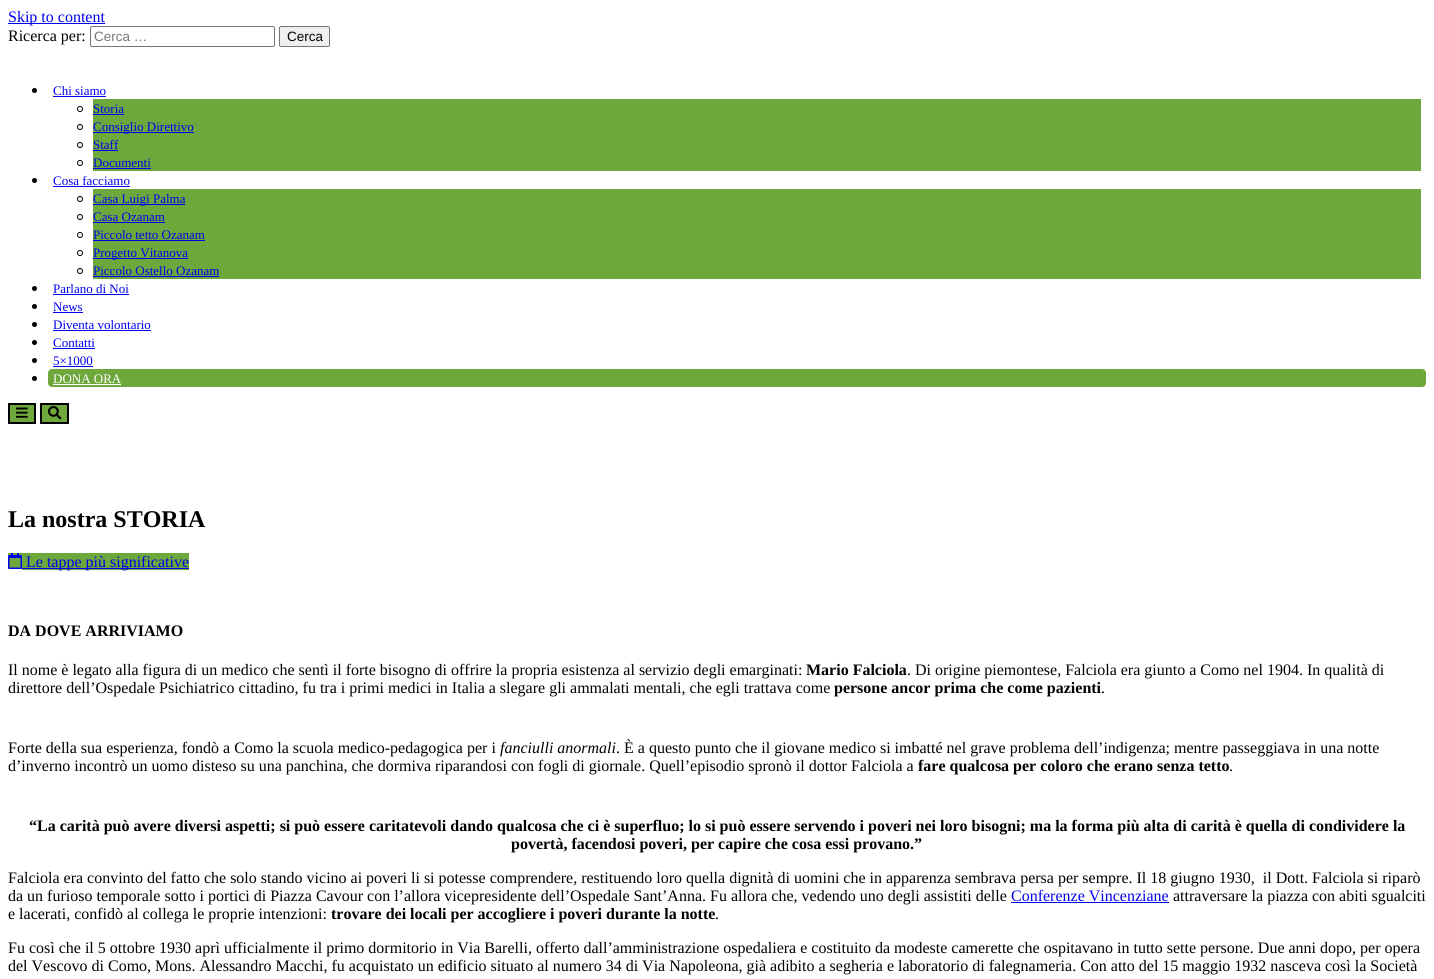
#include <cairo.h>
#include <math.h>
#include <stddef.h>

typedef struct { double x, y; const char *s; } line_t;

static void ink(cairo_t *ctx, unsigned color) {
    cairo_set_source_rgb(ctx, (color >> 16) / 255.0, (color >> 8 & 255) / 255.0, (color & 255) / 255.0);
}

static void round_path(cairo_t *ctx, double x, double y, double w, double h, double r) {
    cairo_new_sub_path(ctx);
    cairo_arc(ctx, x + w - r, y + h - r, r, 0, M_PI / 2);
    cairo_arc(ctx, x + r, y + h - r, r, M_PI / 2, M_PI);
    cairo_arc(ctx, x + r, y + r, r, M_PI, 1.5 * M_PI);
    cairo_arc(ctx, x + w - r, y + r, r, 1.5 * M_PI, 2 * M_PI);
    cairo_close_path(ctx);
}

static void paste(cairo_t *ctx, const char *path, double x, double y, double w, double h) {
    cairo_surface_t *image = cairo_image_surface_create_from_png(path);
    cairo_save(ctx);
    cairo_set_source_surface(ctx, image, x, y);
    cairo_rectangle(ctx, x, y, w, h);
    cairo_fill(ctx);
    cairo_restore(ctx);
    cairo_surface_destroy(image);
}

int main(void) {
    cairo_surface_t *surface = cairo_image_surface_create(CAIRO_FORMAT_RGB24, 1434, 979);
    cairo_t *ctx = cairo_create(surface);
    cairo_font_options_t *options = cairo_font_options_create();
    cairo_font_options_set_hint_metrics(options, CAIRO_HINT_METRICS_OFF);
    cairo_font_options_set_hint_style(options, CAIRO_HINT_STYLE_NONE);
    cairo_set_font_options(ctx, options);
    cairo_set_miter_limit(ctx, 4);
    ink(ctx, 0xFFFFFF);
    cairo_paint(ctx);
    ink(ctx, 0x0000EE);
    cairo_rectangle(ctx, 8, 23, 97, 1);
    cairo_fill(ctx);
    cairo_select_font_face(ctx, "Liberation Serif", CAIRO_FONT_SLANT_NORMAL, CAIRO_FONT_WEIGHT_NORMAL);
    cairo_set_font_size(ctx, 16);
    cairo_move_to(ctx, 8, 22);
    cairo_show_text(ctx, "Skip to content");
    ink(ctx, 0x000000);
    cairo_move_to(ctx, 8, 41);
    cairo_show_text(ctx, "Ricerca per:");
    round_path(ctx, 90.5, 26.5, 184, 20, 1.5);
    ink(ctx, 0x767676);
    cairo_set_line_width(ctx, 1);
    cairo_stroke(ctx);
    cairo_select_font_face(ctx, "Liberation Sans", CAIRO_FONT_SLANT_NORMAL, CAIRO_FONT_WEIGHT_NORMAL);
    cairo_set_font_size(ctx, 13.5);
    ink(ctx, 0x757575);
    cairo_move_to(ctx, 94, 41);
    cairo_show_text(ctx, "Cerca …");
    ink(ctx, 0xEFEFEF);
    round_path(ctx, 279.5, 26.5, 50, 20, 1.5);
    cairo_fill_preserve(ctx);
    ink(ctx, 0x767676);
    cairo_stroke(ctx);
    ink(ctx, 0x000000);
    cairo_move_to(ctx, 287, 41);
    cairo_show_text(ctx, "Cerca");
    cairo_new_path(ctx);
    cairo_arc(ctx, 34.5, 90.5, 2.5, 0, 2 * M_PI);
    cairo_fill(ctx);
    cairo_select_font_face(ctx, "Liberation Serif", CAIRO_FONT_SLANT_NORMAL, CAIRO_FONT_WEIGHT_NORMAL);
    cairo_set_font_size(ctx, 13);
    ink(ctx, 0x0000EE);
    cairo_move_to(ctx, 53, 95);
    cairo_show_text(ctx, "Chi siamo");
    cairo_rectangle(ctx, 53, 96, 53, 1);
    cairo_fill(ctx);
    ink(ctx, 0x6EA73B);
    cairo_rectangle(ctx, 93, 99, 1328, 72);
    cairo_fill(ctx);
    cairo_arc(ctx, 80, 109, 2.5, 0, 2 * M_PI);
    ink(ctx, 0x000000);
    cairo_stroke(ctx);
    ink(ctx, 0x0000EE);
    cairo_move_to(ctx, 93, 113);
    cairo_show_text(ctx, "Storia");
    cairo_rectangle(ctx, 93, 114, 31, 1);
    cairo_fill(ctx);
    cairo_arc(ctx, 80, 127, 2.5, 0, 2 * M_PI);
    ink(ctx, 0x000000);
    cairo_stroke(ctx);
    ink(ctx, 0x0000EE);
    cairo_rectangle(ctx, 93, 132, 101, 1);
    cairo_fill(ctx);
    cairo_move_to(ctx, 93, 131);
    cairo_show_text(ctx, "Consiglio Direttivo");
    cairo_new_path(ctx);
    cairo_arc(ctx, 80, 145, 2.5, 0, 2 * M_PI);
    ink(ctx, 0x000000);
    cairo_stroke(ctx);
    ink(ctx, 0x0000EE);
    cairo_move_to(ctx, 93, 149);
    cairo_show_text(ctx, "Staff");
    cairo_rectangle(ctx, 93, 150, 25, 1);
    cairo_fill(ctx);
    cairo_arc(ctx, 80, 163, 2.5, 0, 2 * M_PI);
    ink(ctx, 0x000000);
    cairo_stroke(ctx);
    ink(ctx, 0x0000EE);
    cairo_move_to(ctx, 93, 167);
    cairo_show_text(ctx, "Documenti");
    cairo_rectangle(ctx, 93, 168, 58, 1);
    cairo_fill(ctx);
    ink(ctx, 0x000000);
    cairo_arc(ctx, 34.5, 180.5, 2.5, 0, 2 * M_PI);
    cairo_fill(ctx);
    ink(ctx, 0x0000EE);
    cairo_move_to(ctx, 53, 185);
    cairo_show_text(ctx, "Cosa facciamo");
    cairo_rectangle(ctx, 53, 186, 77, 1);
    cairo_fill(ctx);
    ink(ctx, 0x6EA73B);
    cairo_rectangle(ctx, 93, 189, 1328, 90);
    cairo_fill(ctx);
    cairo_arc(ctx, 80, 199, 2.5, 0, 2 * M_PI);
    ink(ctx, 0x000000);
    cairo_stroke(ctx);
    ink(ctx, 0x0000EE);
    cairo_rectangle(ctx, 93, 204, 92, 1);
    cairo_fill(ctx);
    cairo_move_to(ctx, 93, 203);
    cairo_show_text(ctx, "Casa Luigi Palma");
    cairo_new_path(ctx);
    cairo_arc(ctx, 80, 217, 2.5, 0, 2 * M_PI);
    ink(ctx, 0x000000);
    cairo_stroke(ctx);
    ink(ctx, 0x0000EE);
    cairo_move_to(ctx, 93, 221);
    cairo_show_text(ctx, "Casa Ozanam");
    cairo_rectangle(ctx, 93, 222, 72, 1);
    cairo_fill(ctx);
    cairo_arc(ctx, 80, 235, 2.5, 0, 2 * M_PI);
    ink(ctx, 0x000000);
    cairo_stroke(ctx);
    ink(ctx, 0x0000EE);
    cairo_move_to(ctx, 93, 239);
    cairo_show_text(ctx, "Piccolo tetto Ozanam");
    cairo_rectangle(ctx, 93, 240, 112, 1);
    cairo_fill(ctx);
    cairo_arc(ctx, 80, 253, 2.5, 0, 2 * M_PI);
    ink(ctx, 0x000000);
    cairo_stroke(ctx);
    ink(ctx, 0x0000EE);
    cairo_rectangle(ctx, 93, 258, 95, 1);
    cairo_fill(ctx);
    cairo_move_to(ctx, 93, 257);
    cairo_show_text(ctx, "Progetto Vitanova");
    cairo_new_path(ctx);
    cairo_arc(ctx, 80, 271, 2.5, 0, 2 * M_PI);
    ink(ctx, 0x000000);
    cairo_stroke(ctx);
    ink(ctx, 0x0000EE);
    cairo_move_to(ctx, 93, 275);
    cairo_show_text(ctx, "Piccolo Ostello Ozanam");
    cairo_rectangle(ctx, 93, 276, 126, 1);
    cairo_fill(ctx);
    ink(ctx, 0x000000);
    cairo_arc(ctx, 34.5, 288.5, 2.5, 0, 2 * M_PI);
    cairo_fill(ctx);
    ink(ctx, 0x0000EE);
    cairo_move_to(ctx, 53, 293);
    cairo_show_text(ctx, "Parlano di Noi");
    cairo_rectangle(ctx, 53, 294, 76, 1);
    cairo_fill(ctx);
    ink(ctx, 0x000000);
    cairo_arc(ctx, 34.5, 306.5, 2.5, 0, 2 * M_PI);
    cairo_fill(ctx);
    ink(ctx, 0x0000EE);
    cairo_move_to(ctx, 53, 311);
    cairo_show_text(ctx, "News");
    cairo_rectangle(ctx, 53, 312, 30, 1);
    cairo_fill(ctx);
    ink(ctx, 0x000000);
    cairo_arc(ctx, 34.5, 324.5, 2.5, 0, 2 * M_PI);
    cairo_fill(ctx);
    ink(ctx, 0x0000EE);
    cairo_move_to(ctx, 53, 329);
    cairo_show_text(ctx, "Diventa volontario");
    cairo_rectangle(ctx, 53, 330, 98, 1);
    cairo_fill(ctx);
    ink(ctx, 0x000000);
    cairo_arc(ctx, 34.5, 342.5, 2.5, 0, 2 * M_PI);
    cairo_fill(ctx);
    ink(ctx, 0x0000EE);
    cairo_move_to(ctx, 53, 347);
    cairo_show_text(ctx, "Contatti");
    cairo_rectangle(ctx, 53, 348, 42, 1);
    cairo_fill(ctx);
    ink(ctx, 0x000000);
    cairo_arc(ctx, 34.5, 360.5, 2.5, 0, 2 * M_PI);
    cairo_fill(ctx);
    ink(ctx, 0x0000EE);
    cairo_move_to(ctx, 53, 365);
    cairo_show_text(ctx, "5×1000");
    cairo_rectangle(ctx, 53, 366, 40, 1);
    cairo_fill(ctx);
    ink(ctx, 0x6EA73B);
    round_path(ctx, 48, 369, 1378, 18, 4);
    cairo_fill(ctx);
    ink(ctx, 0x000000);
    cairo_arc(ctx, 34.5, 378.5, 2.5, 0, 2 * M_PI);
    cairo_fill(ctx);
    ink(ctx, 0xFFFFFF);
    cairo_move_to(ctx, 53, 383);
    cairo_show_text(ctx, "DONA ORA");
    cairo_rectangle(ctx, 53, 384, 68, 1);
    cairo_fill(ctx);
    ink(ctx, 0x6EA73B);
    cairo_rectangle(ctx, 9, 404, 26, 19);
    cairo_fill_preserve(ctx);
    ink(ctx, 0x000000);
    cairo_set_line_width(ctx, 2);
    cairo_stroke(ctx);
    paste(ctx, "media/1.png", 16, 407, 12, 11);
    ink(ctx, 0x6EA73B);
    cairo_rectangle(ctx, 41, 404, 27, 19);
    cairo_fill_preserve(ctx);
    ink(ctx, 0x000000);
    cairo_stroke(ctx);
    paste(ctx, "media/2.png", 48, 406, 14, 14);
    cairo_select_font_face(ctx, "Liberation Serif", CAIRO_FONT_SLANT_NORMAL, CAIRO_FONT_WEIGHT_BOLD);
    cairo_set_font_size(ctx, 24);
    cairo_move_to(ctx, 8, 527);
    cairo_show_text(ctx, "La nostra STORIA");
    ink(ctx, 0x6EA73B);
    cairo_rectangle(ctx, 8, 553, 14, 16);
    cairo_fill(ctx);
    cairo_rectangle(ctx, 22, 553, 167, 17);
    cairo_fill(ctx);
    paste(ctx, "media/3.png", 8, 553, 14, 16);
    ink(ctx, 0x0000EE);
    cairo_rectangle(ctx, 22, 568, 167, 1);
    cairo_fill(ctx);
    cairo_select_font_face(ctx, "Liberation Serif", CAIRO_FONT_SLANT_NORMAL, CAIRO_FONT_WEIGHT_NORMAL);
    cairo_set_font_size(ctx, 16);
    cairo_move_to(ctx, 26, 567);
    cairo_show_text(ctx, "Le tappe più significative");
    cairo_select_font_face(ctx, "Liberation Serif", CAIRO_FONT_SLANT_NORMAL, CAIRO_FONT_WEIGHT_BOLD);
    ink(ctx, 0x000000);
    cairo_move_to(ctx, 8, 636);
    cairo_show_text(ctx, "DA DOVE ARRIVIAMO");
    cairo_select_font_face(ctx, "Liberation Serif", CAIRO_FONT_SLANT_NORMAL, CAIRO_FONT_WEIGHT_NORMAL);
    cairo_move_to(ctx, 8, 675);
    cairo_show_text(ctx, "Il nome è legato alla figura di un medico che sentì il forte bisogno di offrire la propria esistenza al servizio degli emarginati:");
    cairo_select_font_face(ctx, "Liberation Serif", CAIRO_FONT_SLANT_NORMAL, CAIRO_FONT_WEIGHT_BOLD);
    cairo_move_to(ctx, 806, 675);
    cairo_show_text(ctx, "Mario Falciola");
    cairo_select_font_face(ctx, "Liberation Serif", CAIRO_FONT_SLANT_NORMAL, CAIRO_FONT_WEIGHT_NORMAL);
    cairo_move_to(ctx, 907, 675);
    cairo_show_text(ctx, ". Di origine piemontese, Falciola era giunto a Como nel 1904. In qualità di");
    cairo_move_to(ctx, 8, 693);
    cairo_show_text(ctx, "direttore dell’Ospedale Psichiatrico cittadino, fu tra i primi medici in Italia a slegare gli ammalati mentali, che egli trattava come");
    cairo_select_font_face(ctx, "Liberation Serif", CAIRO_FONT_SLANT_NORMAL, CAIRO_FONT_WEIGHT_BOLD);
    cairo_move_to(ctx, 834, 693);
    cairo_show_text(ctx, "persone ancor prima che come pazienti");
    cairo_select_font_face(ctx, "Liberation Serif", CAIRO_FONT_SLANT_NORMAL, CAIRO_FONT_WEIGHT_NORMAL);
    cairo_move_to(ctx, 1101, 693);
    cairo_show_text(ctx, ".");
    cairo_move_to(ctx, 8, 753);
    cairo_show_text(ctx, "Forte della sua esperienza, fondò a Como la scuola medico-pedagogica per i");
    cairo_select_font_face(ctx, "Liberation Serif", CAIRO_FONT_SLANT_ITALIC, CAIRO_FONT_WEIGHT_NORMAL);
    cairo_move_to(ctx, 500, 753);
    cairo_show_text(ctx, "fanciulli anormali");
    cairo_select_font_face(ctx, "Liberation Serif", CAIRO_FONT_SLANT_NORMAL, CAIRO_FONT_WEIGHT_NORMAL);
    cairo_move_to(ctx, 616, 753);
    cairo_show_text(ctx, ". È a questo punto che il giovane medico si imbatté nel grave problema dell’indigenza; mentre passeggiava in una notte");
    cairo_move_to(ctx, 8, 771);
    cairo_show_text(ctx, "d’inverno incontrò un uomo disteso su una panchina, che dormiva riparandosi con fogli di giornale. Quell’episodio spronò il dottor Falciola a");
    cairo_select_font_face(ctx, "Liberation Serif", CAIRO_FONT_SLANT_NORMAL, CAIRO_FONT_WEIGHT_BOLD);
    cairo_move_to(ctx, 918, 771);
    cairo_show_text(ctx, "fare qualcosa per coloro che erano senza tetto");
    cairo_select_font_face(ctx, "Liberation Serif", CAIRO_FONT_SLANT_NORMAL, CAIRO_FONT_WEIGHT_NORMAL);
    cairo_move_to(ctx, 1229, 771);
    cairo_show_text(ctx, ".");
    cairo_select_font_face(ctx, "Liberation Serif", CAIRO_FONT_SLANT_NORMAL, CAIRO_FONT_WEIGHT_BOLD);
    cairo_move_to(ctx, 29, 831);
    cairo_show_text(ctx, "“La carità può avere diversi aspetti; si può essere caritatevoli dando qualcosa che ci è superfluo; lo si può essere servendo i poveri nei loro bisogni; ma la forma più alta di carità è quella di condividere la");
    cairo_move_to(ctx, 511, 849);
    cairo_show_text(ctx, "povertà, facendosi poveri, per capire che cosa essi provano.”");
    cairo_select_font_face(ctx, "Liberation Serif", CAIRO_FONT_SLANT_NORMAL, CAIRO_FONT_WEIGHT_NORMAL);
    cairo_move_to(ctx, 8, 883);
    cairo_show_text(ctx, "Falciola era convinto del fatto che solo stando vicino ai poveri li si potesse comprendere, restituendo loro quella dignità di uomini che in apparenza sembrava persa per sempre. Il 18 giugno 1930,  il Dott. Falciola si riparò");
    cairo_move_to(ctx, 8, 901);
    cairo_show_text(ctx, "da un furioso temporale sotto i portici di Piazza Cavour con l’allora vicepresidente dell’Ospedale Sant’Anna. Fu allora che, vedendo uno degli assistiti delle");
    ink(ctx, 0x0000EE);
    cairo_move_to(ctx, 1011, 901);
    cairo_show_text(ctx, "Conferenze Vincenziane");
    cairo_rectangle(ctx, 1011, 902, 158, 1);
    cairo_fill(ctx);
    ink(ctx, 0x000000);
    cairo_move_to(ctx, 1173, 901);
    cairo_show_text(ctx, "attraversare la piazza con abiti sgualciti");
    cairo_move_to(ctx, 8, 919);
    cairo_show_text(ctx, "e lacerati, confidò al collega le proprie intenzioni:");
    cairo_select_font_face(ctx, "Liberation Serif", CAIRO_FONT_SLANT_NORMAL, CAIRO_FONT_WEIGHT_BOLD);
    cairo_move_to(ctx, 331, 919);
    cairo_show_text(ctx, "trovare dei locali per accogliere i poveri durante la notte");
    cairo_select_font_face(ctx, "Liberation Serif", CAIRO_FONT_SLANT_NORMAL, CAIRO_FONT_WEIGHT_NORMAL);
    {
        static const line_t items[] = {
            {715, 919, "."},
            {8, 953, "Fu così che il 5 ottobre 1930 aprì ufficialmente il primo dormitorio in Via Barelli, offerto dall’amministrazione ospedaliera e costituito da modeste camerette che ospitavano in tutto sette persone. Due anni dopo, per opera"},
            {8, 971, "del Vescovo di Como, Mons. Alessandro Macchi, fu acquistato un edificio situato al numero 34 di Via Napoleona, già adibito a segheria e laboratorio di falegnameria. Con atto del 15 maggio 1932 nasceva così la Società"},
        };
        for (size_t i = 0; i < sizeof items / sizeof *items; i++) {
            cairo_move_to(ctx, items[i].x, items[i].y);
            cairo_show_text(ctx, items[i].s);
        }
    }
    cairo_surface_write_to_png(surface, "image.png");
    cairo_font_options_destroy(options);
    cairo_destroy(ctx);
    cairo_surface_destroy(surface);
    return 0;
}
